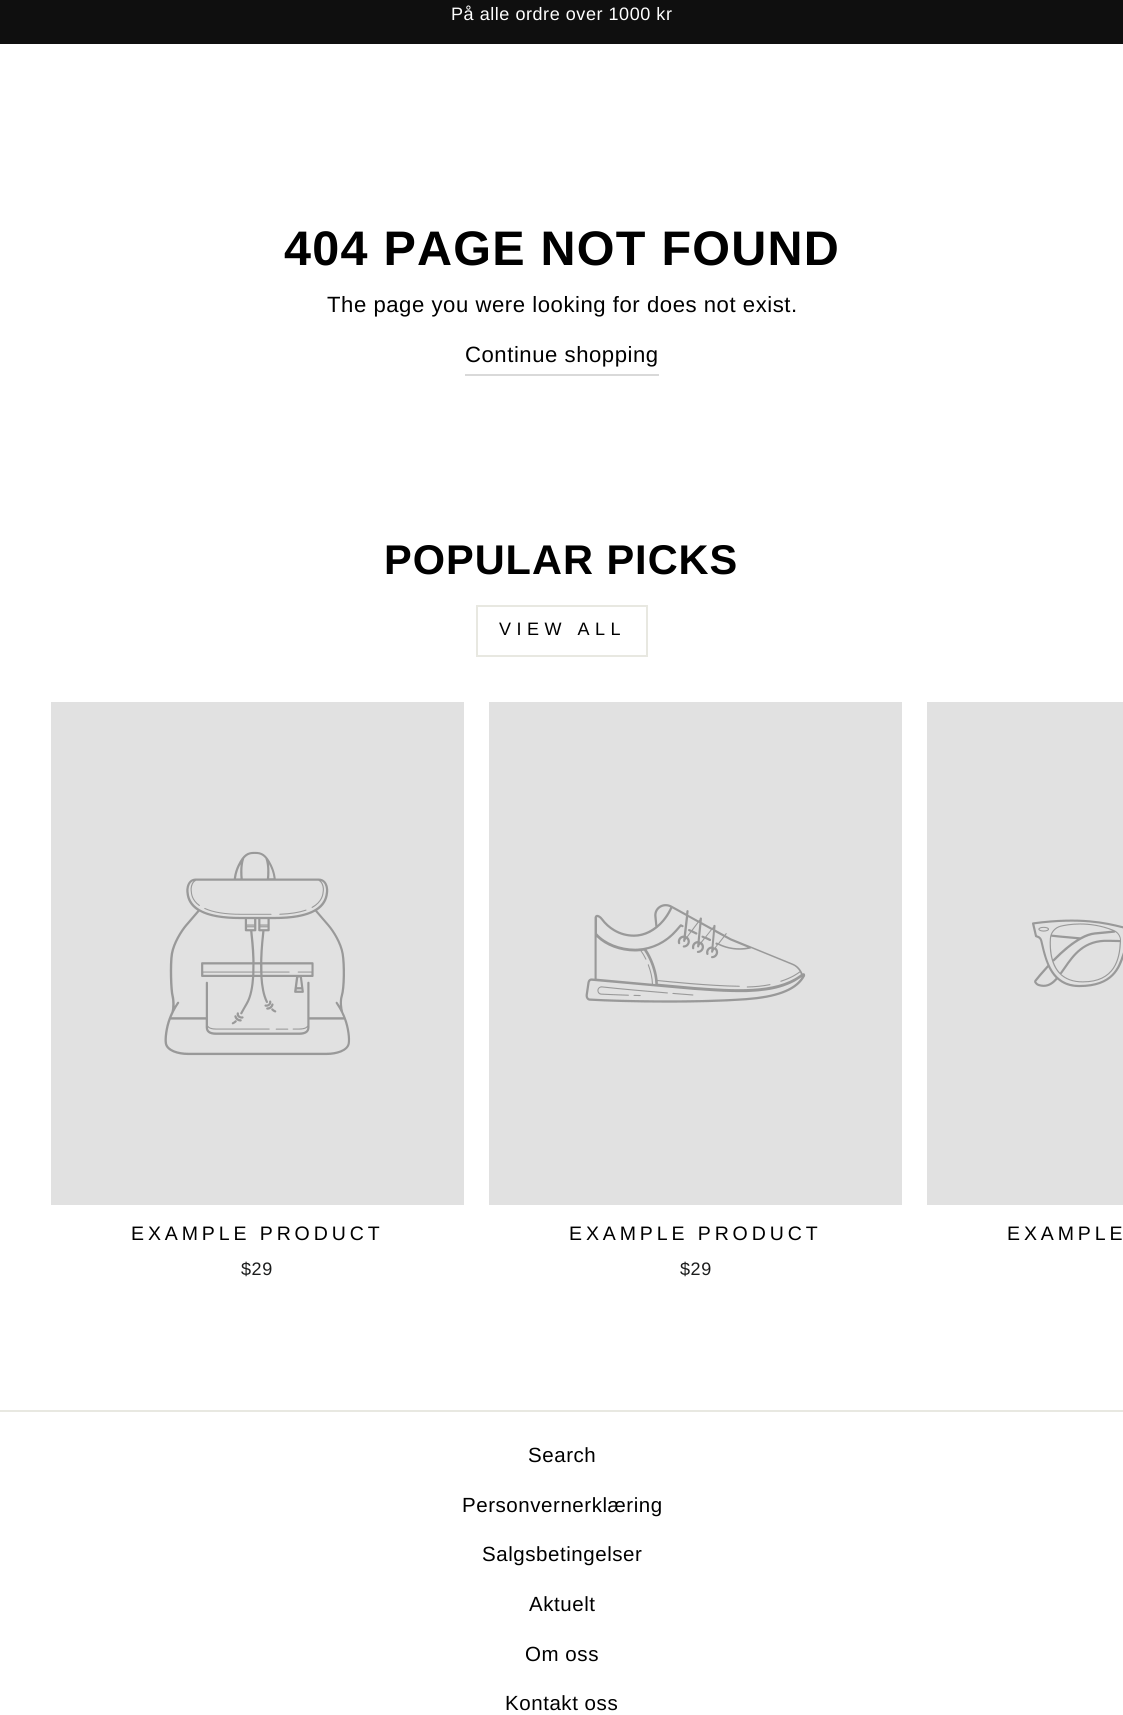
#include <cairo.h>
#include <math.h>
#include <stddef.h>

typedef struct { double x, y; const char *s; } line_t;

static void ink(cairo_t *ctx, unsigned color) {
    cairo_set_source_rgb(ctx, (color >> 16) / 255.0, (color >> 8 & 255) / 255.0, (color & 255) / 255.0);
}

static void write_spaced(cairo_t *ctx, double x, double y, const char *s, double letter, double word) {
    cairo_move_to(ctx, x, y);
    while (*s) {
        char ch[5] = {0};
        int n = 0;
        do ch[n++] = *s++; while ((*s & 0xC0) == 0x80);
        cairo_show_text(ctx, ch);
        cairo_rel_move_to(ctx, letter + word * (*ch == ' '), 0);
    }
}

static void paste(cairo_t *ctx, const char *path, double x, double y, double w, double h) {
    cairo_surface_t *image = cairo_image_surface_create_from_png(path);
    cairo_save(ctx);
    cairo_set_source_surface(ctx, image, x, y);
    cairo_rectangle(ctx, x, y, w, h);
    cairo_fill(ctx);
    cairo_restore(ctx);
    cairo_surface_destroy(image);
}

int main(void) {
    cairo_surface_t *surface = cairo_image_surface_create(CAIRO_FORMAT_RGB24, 1123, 1715);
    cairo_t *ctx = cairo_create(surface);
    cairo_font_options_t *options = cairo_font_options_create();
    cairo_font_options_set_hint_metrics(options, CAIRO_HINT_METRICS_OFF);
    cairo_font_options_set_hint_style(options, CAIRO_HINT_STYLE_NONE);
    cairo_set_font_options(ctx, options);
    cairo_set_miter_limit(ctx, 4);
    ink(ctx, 0xFFFFFF);
    cairo_paint(ctx);
    ink(ctx, 0x0F0F0F);
    cairo_rectangle(ctx, 0, 0, 1123, 44);
    cairo_fill(ctx);
    cairo_select_font_face(ctx, "Arimo", CAIRO_FONT_SLANT_NORMAL, CAIRO_FONT_WEIGHT_NORMAL);
    cairo_set_font_size(ctx, 18);
    ink(ctx, 0xFFFFFF);
    write_spaced(ctx, 451, 20, "På alle ordre over 1000 kr", 0.55, 0);
    cairo_select_font_face(ctx, "Arimo", CAIRO_FONT_SLANT_NORMAL, CAIRO_FONT_WEIGHT_BOLD);
    cairo_set_font_size(ctx, 48.5);
    ink(ctx, 0x000000);
    write_spaced(ctx, 284, 265, "404 PAGE NOT FOUND", 1.25, 0);
    cairo_select_font_face(ctx, "Arimo", CAIRO_FONT_SLANT_NORMAL, CAIRO_FONT_WEIGHT_NORMAL);
    cairo_set_font_size(ctx, 22.1);
    write_spaced(ctx, 327, 312, "The page you were looking for does not exist.", 0.55, 0);
    ink(ctx, 0xD9D9D9);
    cairo_rectangle(ctx, 465, 374, 194, 2);
    cairo_fill(ctx);
    ink(ctx, 0x000000);
    write_spaced(ctx, 465, 362, "Continue shopping", 0.55, 0);
    cairo_select_font_face(ctx, "Arimo", CAIRO_FONT_SLANT_NORMAL, CAIRO_FONT_WEIGHT_BOLD);
    cairo_set_font_size(ctx, 41.5);
    write_spaced(ctx, 384, 574, "POPULAR PICKS", 1, 0);
    cairo_rectangle(ctx, 477, 606, 170, 50);
    ink(ctx, 0xE8E8E1);
    cairo_stroke(ctx);
    cairo_select_font_face(ctx, "Arimo", CAIRO_FONT_SLANT_NORMAL, CAIRO_FONT_WEIGHT_NORMAL);
    cairo_set_font_size(ctx, 18);
    ink(ctx, 0x000000);
    write_spaced(ctx, 499, 635, "VIEW ALL", 5.5, 0);
    ink(ctx, 0xE1E1E1);
    cairo_rectangle(ctx, 51, 702, 413, 503);
    cairo_fill(ctx);
    paste(ctx, "media/1.png", 164, 851, 187, 205);
    cairo_set_font_size(ctx, 19.5);
    ink(ctx, 0x000000);
    write_spaced(ctx, 131, 1240, "EXAMPLE PRODUCT", 3.9, 0);
    cairo_set_font_size(ctx, 18);
    ink(ctx, 0x1C1D1D);
    write_spaced(ctx, 241, 1275, "$29", 0.55, 0);
    ink(ctx, 0xE1E1E1);
    cairo_rectangle(ctx, 489, 702, 413, 503);
    cairo_fill(ctx);
    paste(ctx, "media/2.png", 585, 904, 221, 99);
    cairo_set_font_size(ctx, 19.5);
    ink(ctx, 0x000000);
    write_spaced(ctx, 569, 1240, "EXAMPLE PRODUCT", 3.9, 0);
    cairo_set_font_size(ctx, 18);
    ink(ctx, 0x1C1D1D);
    write_spaced(ctx, 680, 1275, "$29", 0.55, 0);
    ink(ctx, 0xE1E1E1);
    cairo_rectangle(ctx, 927, 702, 196, 503);
    cairo_fill(ctx);
    paste(ctx, "media/3.png", 1032, 919, 91, 69);
    cairo_set_font_size(ctx, 19.5);
    ink(ctx, 0x000000);
    write_spaced(ctx, 1007, 1240, "EXAMPLE", 3.9, 0);
    ink(ctx, 0xE8E8E1);
    cairo_rectangle(ctx, 0, 1410, 1123, 2);
    cairo_fill(ctx);
    cairo_set_font_size(ctx, 20.5);
    ink(ctx, 0x000000);
    {
        static const line_t items[] = {
            {528, 1462, "Search"},
            {462, 1512, "Personvernerklæring"},
            {482, 1561, "Salgsbetingelser"},
            {529, 1611, "Aktuelt"},
            {525, 1661, "Om oss"},
            {505, 1710, "Kontakt oss"},
        };
        for (size_t i = 0; i < sizeof items / sizeof *items; i++) {
            write_spaced(ctx, items[i].x, items[i].y, items[i].s, 0.55, 0);
        }
    }
    cairo_surface_write_to_png(surface, "image.png");
    cairo_font_options_destroy(options);
    cairo_destroy(ctx);
    cairo_surface_destroy(surface);
    return 0;
}
